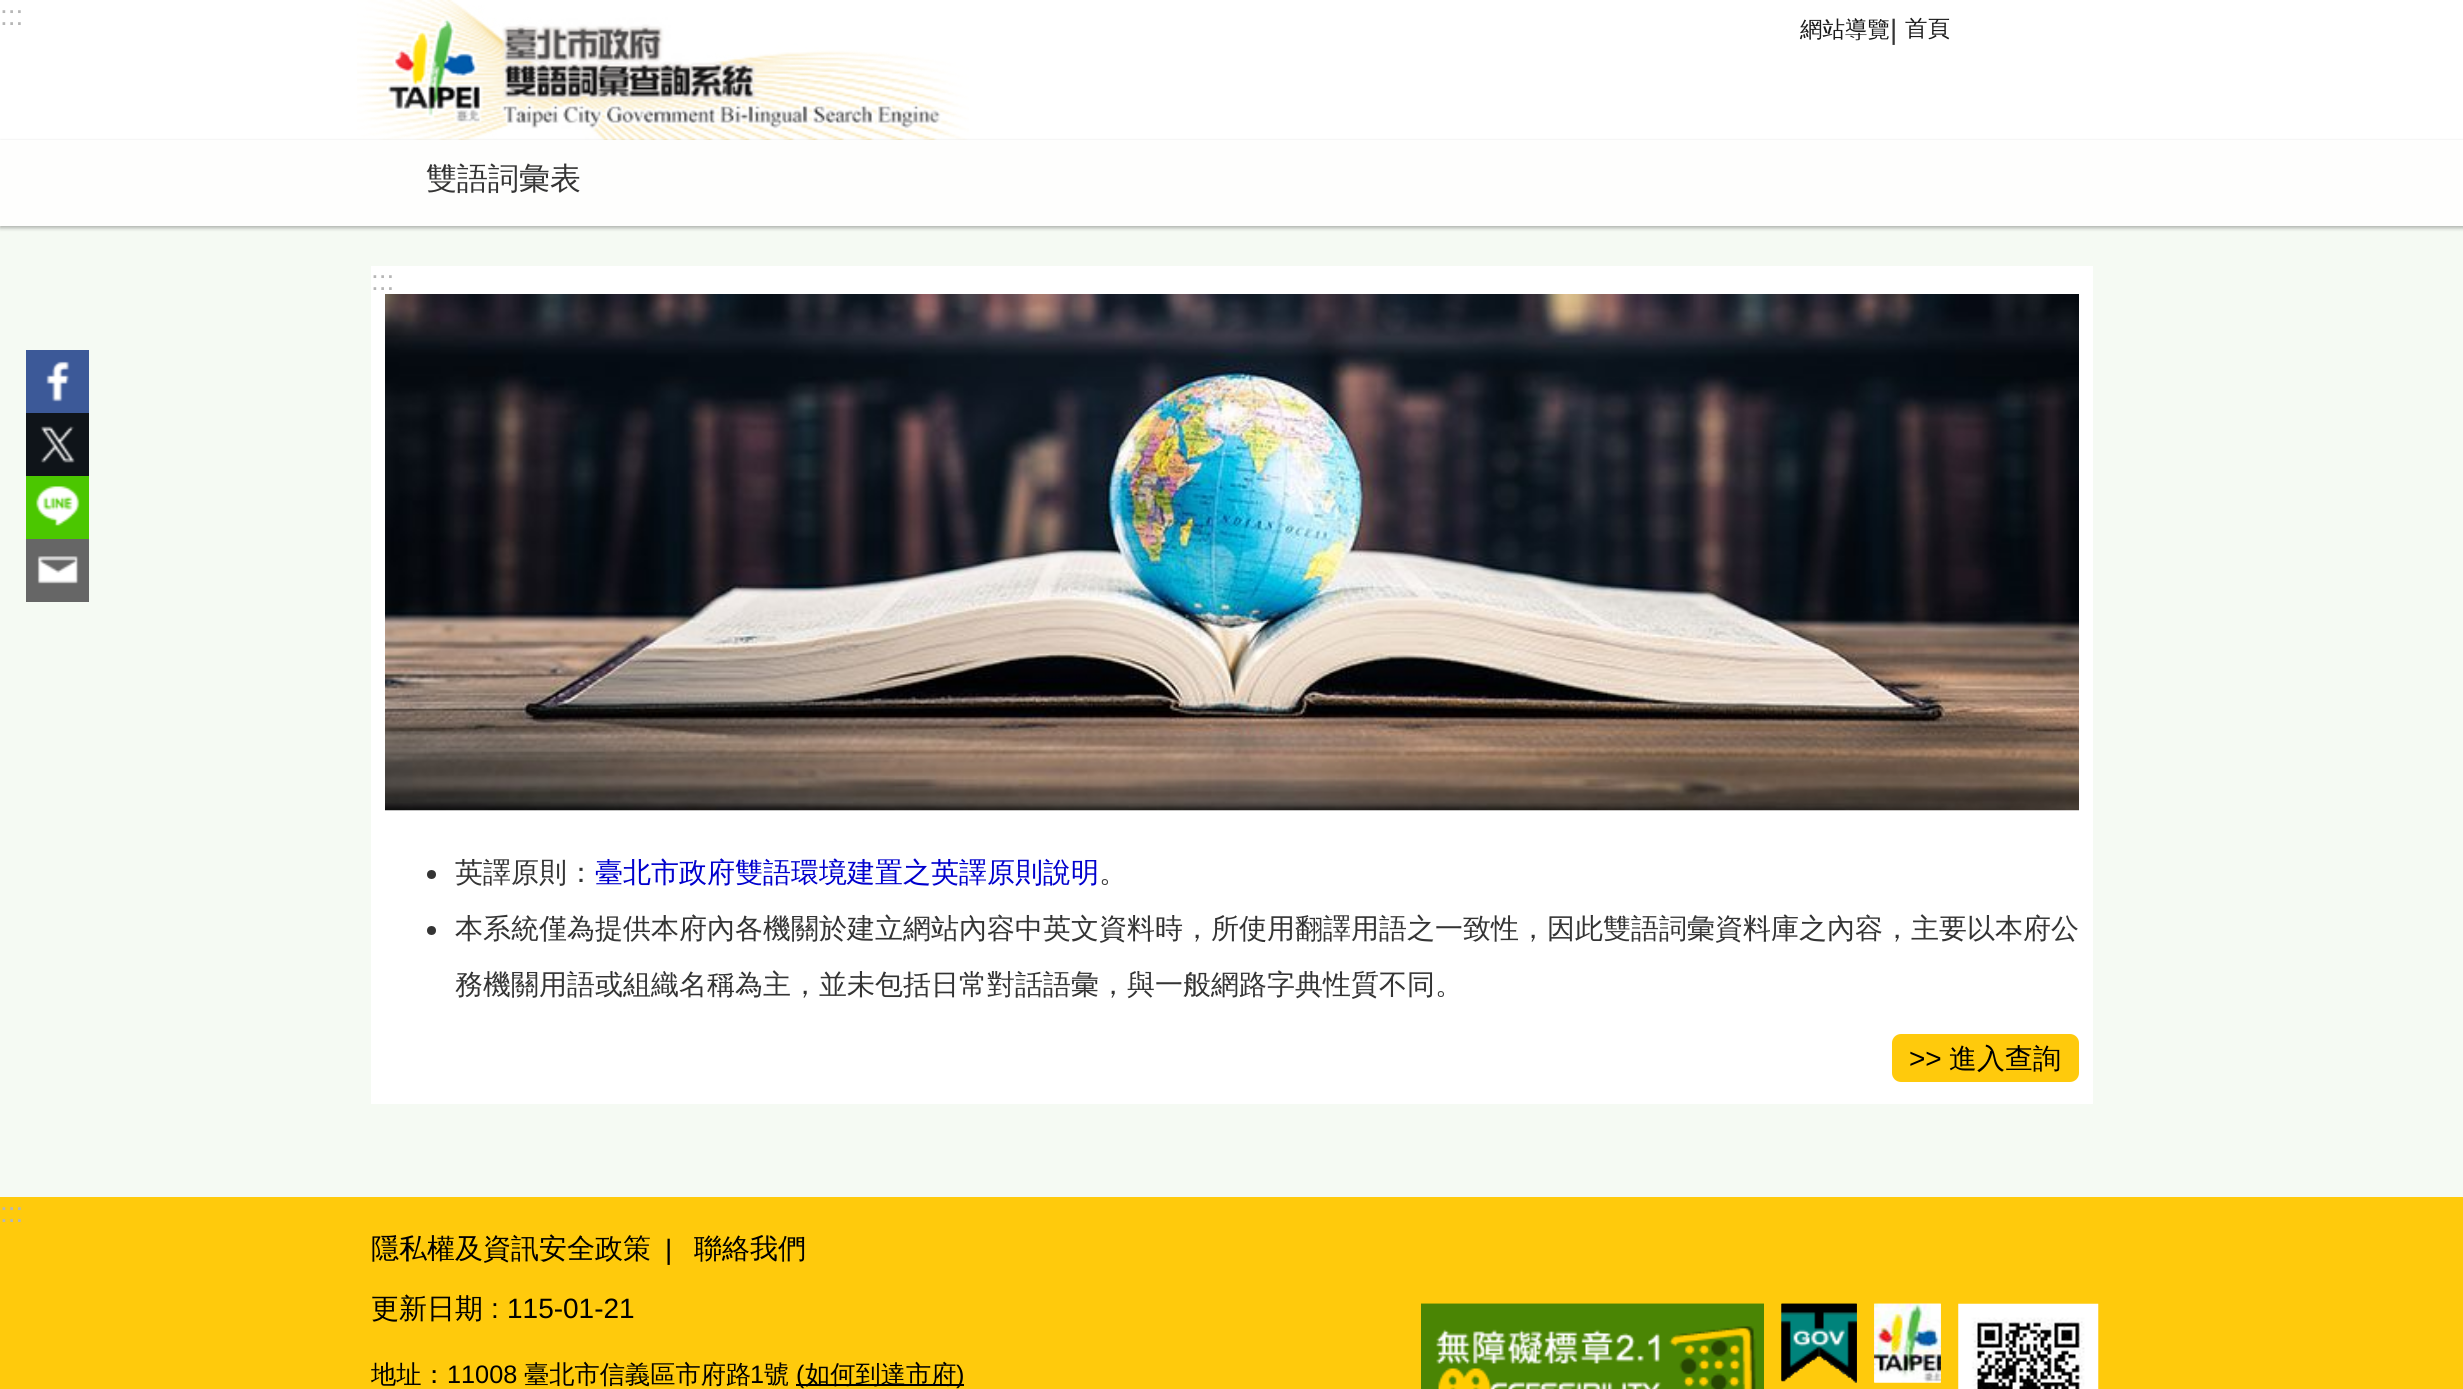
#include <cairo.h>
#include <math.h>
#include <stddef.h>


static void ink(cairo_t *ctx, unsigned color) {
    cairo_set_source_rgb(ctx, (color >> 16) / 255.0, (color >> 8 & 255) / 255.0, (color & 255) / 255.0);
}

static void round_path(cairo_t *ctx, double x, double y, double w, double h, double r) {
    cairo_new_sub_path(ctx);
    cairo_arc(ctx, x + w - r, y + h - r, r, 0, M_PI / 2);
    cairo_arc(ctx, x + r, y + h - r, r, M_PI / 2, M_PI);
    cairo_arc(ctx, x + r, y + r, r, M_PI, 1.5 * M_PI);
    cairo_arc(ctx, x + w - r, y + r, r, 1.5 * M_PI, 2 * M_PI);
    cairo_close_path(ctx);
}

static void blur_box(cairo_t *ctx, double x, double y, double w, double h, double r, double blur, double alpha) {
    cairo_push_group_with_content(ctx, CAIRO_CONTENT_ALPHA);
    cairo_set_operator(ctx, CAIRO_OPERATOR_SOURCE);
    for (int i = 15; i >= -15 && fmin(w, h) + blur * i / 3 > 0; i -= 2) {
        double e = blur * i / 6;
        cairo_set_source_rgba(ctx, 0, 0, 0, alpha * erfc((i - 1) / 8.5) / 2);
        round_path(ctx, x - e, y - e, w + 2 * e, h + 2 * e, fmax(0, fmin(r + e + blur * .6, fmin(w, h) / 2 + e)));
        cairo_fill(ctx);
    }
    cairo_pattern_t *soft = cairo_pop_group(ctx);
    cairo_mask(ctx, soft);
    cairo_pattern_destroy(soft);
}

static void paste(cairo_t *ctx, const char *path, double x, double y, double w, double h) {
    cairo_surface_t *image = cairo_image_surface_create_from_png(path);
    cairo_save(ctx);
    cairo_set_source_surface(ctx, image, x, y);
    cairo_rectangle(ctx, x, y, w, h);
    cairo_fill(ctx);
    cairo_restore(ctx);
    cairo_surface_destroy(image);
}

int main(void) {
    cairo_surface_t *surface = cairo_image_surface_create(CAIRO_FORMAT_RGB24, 2463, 1389);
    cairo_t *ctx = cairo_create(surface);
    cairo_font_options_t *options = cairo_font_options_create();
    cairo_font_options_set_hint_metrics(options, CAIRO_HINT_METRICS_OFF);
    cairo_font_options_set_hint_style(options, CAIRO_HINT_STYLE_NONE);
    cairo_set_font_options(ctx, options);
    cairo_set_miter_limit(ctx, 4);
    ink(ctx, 0xF5FAF3);
    cairo_paint(ctx);
    ink(ctx, 0xFFFFFF);
    cairo_rectangle(ctx, 0, 0, 2463, 140);
    cairo_fill(ctx);
    cairo_select_font_face(ctx, "Liberation Sans", CAIRO_FONT_SLANT_NORMAL, CAIRO_FONT_WEIGHT_NORMAL);
    cairo_set_font_size(ctx, 28);
    ink(ctx, 0xB6B6B6);
    cairo_move_to(ctx, 0, 25);
    cairo_show_text(ctx, ":::");
    paste(ctx, "media/1.png", 357, 0, 612, 140);
    cairo_select_font_face(ctx, "WenQuanYi Zen Hei Medium", CAIRO_FONT_SLANT_NORMAL, CAIRO_FONT_WEIGHT_NORMAL);
    cairo_set_font_size(ctx, 22.5);
    ink(ctx, 0x1A1A1A);
    cairo_move_to(ctx, 1800, 37);
    cairo_show_text(ctx, "網站導覽");
    cairo_select_font_face(ctx, "Liberation Sans", CAIRO_FONT_SLANT_NORMAL, CAIRO_FONT_WEIGHT_NORMAL);
    cairo_set_font_size(ctx, 28);
    ink(ctx, 0x343434);
    cairo_move_to(ctx, 1890, 39);
    cairo_show_text(ctx, "|");
    cairo_select_font_face(ctx, "WenQuanYi Zen Hei Medium", CAIRO_FONT_SLANT_NORMAL, CAIRO_FONT_WEIGHT_NORMAL);
    cairo_set_font_size(ctx, 22.5);
    ink(ctx, 0x1A1A1A);
    cairo_move_to(ctx, 1905, 36);
    cairo_show_text(ctx, "首頁");
    cairo_save(ctx);
    cairo_set_fill_rule(ctx, CAIRO_FILL_RULE_EVEN_ODD);
    cairo_new_path(ctx);
    cairo_move_to(ctx, 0, 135);
    cairo_line_to(ctx, 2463, 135);
    cairo_line_to(ctx, 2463, 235);
    cairo_line_to(ctx, 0, 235);
    cairo_close_path(ctx);
    cairo_move_to(ctx, 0, 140);
    cairo_line_to(ctx, 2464, 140);
    cairo_line_to(ctx, 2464, 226);
    cairo_line_to(ctx, 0, 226);
    cairo_close_path(ctx);
    cairo_clip(ctx);
    ink(ctx, 0x000000);
    blur_box(ctx, 0, 142, 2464, 86, 0, 2, 0.3);
    cairo_restore(ctx);
    cairo_set_source_rgba(ctx, 1, 1, 1, 0.85);
    cairo_rectangle(ctx, 0, 140, 2463, 86);
    cairo_fill(ctx);
    cairo_set_font_size(ctx, 31);
    ink(ctx, 0x343434);
    cairo_move_to(ctx, 426, 189);
    cairo_show_text(ctx, "雙語詞彙表");
    ink(ctx, 0x3C5998);
    cairo_rectangle(ctx, 26, 350, 63, 63);
    cairo_fill(ctx);
    paste(ctx, "media/2.png", 46, 361, 24, 41);
    ink(ctx, 0x0F1419);
    cairo_rectangle(ctx, 26, 413, 63, 63);
    cairo_fill(ctx);
    paste(ctx, "media/3.png", 40, 426, 35, 37);
    ink(ctx, 0x4BC700);
    cairo_rectangle(ctx, 26, 476, 63, 63);
    cairo_fill(ctx);
    paste(ctx, "media/4.png", 36, 486, 44, 40);
    ink(ctx, 0x666666);
    cairo_rectangle(ctx, 26, 539, 63, 63);
    cairo_fill(ctx);
    paste(ctx, "media/5.png", 37, 556, 42, 28);
    ink(ctx, 0xFFFFFF);
    cairo_rectangle(ctx, 371, 266, 1722, 838);
    cairo_fill(ctx);
    cairo_select_font_face(ctx, "Liberation Sans", CAIRO_FONT_SLANT_NORMAL, CAIRO_FONT_WEIGHT_NORMAL);
    cairo_set_font_size(ctx, 28);
    ink(ctx, 0xB6B6B6);
    cairo_move_to(ctx, 371, 290);
    cairo_show_text(ctx, ":::");
    paste(ctx, "media/6.png", 385, 294, 1694, 517);
    ink(ctx, 0x343434);
    cairo_arc(ctx, 431.5, 874.5, 4.5, 0, 2 * M_PI);
    cairo_fill(ctx);
    cairo_select_font_face(ctx, "WenQuanYi Zen Hei Medium", CAIRO_FONT_SLANT_NORMAL, CAIRO_FONT_WEIGHT_NORMAL);
    cairo_move_to(ctx, 455, 882);
    cairo_show_text(ctx, "英譯原則：");
    ink(ctx, 0x0000CD);
    cairo_move_to(ctx, 595, 882);
    cairo_show_text(ctx, "臺北市政府雙語環境建置之英譯原則說明");
    ink(ctx, 0x343434);
    cairo_move_to(ctx, 1099, 882);
    cairo_show_text(ctx, "。");
    cairo_new_path(ctx);
    cairo_arc(ctx, 431.5, 930.5, 4.5, 0, 2 * M_PI);
    cairo_fill(ctx);
    cairo_move_to(ctx, 455, 938);
    cairo_show_text(ctx, "本系統僅為提供本府內各機關於建立網站內容中英文資料時，所使用翻譯用語之一致性，因此雙語詞彙資料庫之內容，主要以本府公");
    cairo_move_to(ctx, 455, 994);
    cairo_show_text(ctx, "務機關用語或組織名稱為主，並未包括日常對話語彙，與一般網路字典性質不同。");
    ink(ctx, 0xFFCA0C);
    round_path(ctx, 1892, 1034, 187, 48, 9);
    cairo_fill(ctx);
    cairo_select_font_face(ctx, "Liberation Sans", CAIRO_FONT_SLANT_NORMAL, CAIRO_FONT_WEIGHT_NORMAL);
    ink(ctx, 0x000000);
    cairo_move_to(ctx, 1909, 1068);
    cairo_show_text(ctx, ">>");
    cairo_select_font_face(ctx, "WenQuanYi Zen Hei Medium", CAIRO_FONT_SLANT_NORMAL, CAIRO_FONT_WEIGHT_NORMAL);
    cairo_move_to(ctx, 1949, 1068);
    cairo_show_text(ctx, "進入查詢");
    ink(ctx, 0xFFCA0C);
    cairo_rectangle(ctx, 0, 1197, 2463, 192);
    cairo_fill(ctx);
    cairo_select_font_face(ctx, "Liberation Sans", CAIRO_FONT_SLANT_NORMAL, CAIRO_FONT_WEIGHT_NORMAL);
    ink(ctx, 0xB6B6B6);
    cairo_move_to(ctx, 0, 1222);
    cairo_show_text(ctx, ":::");
    cairo_select_font_face(ctx, "WenQuanYi Zen Hei Medium", CAIRO_FONT_SLANT_NORMAL, CAIRO_FONT_WEIGHT_NORMAL);
    ink(ctx, 0x000000);
    cairo_move_to(ctx, 371, 1258);
    cairo_show_text(ctx, "隱私權及資訊安全政策");
    cairo_select_font_face(ctx, "Liberation Sans", CAIRO_FONT_SLANT_NORMAL, CAIRO_FONT_WEIGHT_NORMAL);
    cairo_move_to(ctx, 665, 1259);
    cairo_show_text(ctx, "|");
    cairo_select_font_face(ctx, "WenQuanYi Zen Hei Medium", CAIRO_FONT_SLANT_NORMAL, CAIRO_FONT_WEIGHT_NORMAL);
    cairo_move_to(ctx, 694, 1258);
    cairo_show_text(ctx, "聯絡我們");
    cairo_move_to(ctx, 371, 1318);
    cairo_show_text(ctx, "更新日期");
    cairo_select_font_face(ctx, "Liberation Sans", CAIRO_FONT_SLANT_NORMAL, CAIRO_FONT_WEIGHT_NORMAL);
    cairo_move_to(ctx, 491, 1318);
    cairo_show_text(ctx, ":");
    cairo_move_to(ctx, 507, 1318);
    cairo_show_text(ctx, "115-01-21");
    cairo_select_font_face(ctx, "WenQuanYi Zen Hei Medium", CAIRO_FONT_SLANT_NORMAL, CAIRO_FONT_WEIGHT_NORMAL);
    cairo_set_font_size(ctx, 25.25);
    cairo_move_to(ctx, 371, 1383);
    cairo_show_text(ctx, "地址：");
    cairo_select_font_face(ctx, "Liberation Sans", CAIRO_FONT_SLANT_NORMAL, CAIRO_FONT_WEIGHT_NORMAL);
    cairo_move_to(ctx, 447, 1383);
    cairo_show_text(ctx, "11008");
    cairo_select_font_face(ctx, "WenQuanYi Zen Hei Medium", CAIRO_FONT_SLANT_NORMAL, CAIRO_FONT_WEIGHT_NORMAL);
    cairo_move_to(ctx, 524, 1383);
    cairo_show_text(ctx, "臺北市信義區市府路");
    cairo_select_font_face(ctx, "Liberation Sans", CAIRO_FONT_SLANT_NORMAL, CAIRO_FONT_WEIGHT_NORMAL);
    cairo_move_to(ctx, 750, 1383);
    cairo_show_text(ctx, "1");
    cairo_select_font_face(ctx, "WenQuanYi Zen Hei Medium", CAIRO_FONT_SLANT_NORMAL, CAIRO_FONT_WEIGHT_NORMAL);
    cairo_move_to(ctx, 764, 1383);
    cairo_show_text(ctx, "號");
    cairo_rectangle(ctx, 796, 1384, 168, 2);
    cairo_fill(ctx);
    cairo_select_font_face(ctx, "Liberation Sans", CAIRO_FONT_SLANT_NORMAL, CAIRO_FONT_WEIGHT_NORMAL);
    cairo_move_to(ctx, 796, 1383);
    cairo_show_text(ctx, "(");
    cairo_select_font_face(ctx, "WenQuanYi Zen Hei Medium", CAIRO_FONT_SLANT_NORMAL, CAIRO_FONT_WEIGHT_NORMAL);
    cairo_move_to(ctx, 805, 1383);
    cairo_show_text(ctx, "如何到達市府");
    cairo_select_font_face(ctx, "Liberation Sans", CAIRO_FONT_SLANT_NORMAL, CAIRO_FONT_WEIGHT_NORMAL);
    cairo_move_to(ctx, 956, 1383);
    cairo_show_text(ctx, ")");
    paste(ctx, "media/7.png", 1421, 1304, 343, 85);
    ink(ctx, 0xAFAB08);
    cairo_rectangle(ctx, 1421, 1303, 343, 1);
    cairo_fill(ctx);
    paste(ctx, "media/8.png", 1781, 1303, 76, 80);
    paste(ctx, "media/9.png", 1781, 1303, 76, 80);
    paste(ctx, "media/10.png", 1874, 1303, 67, 80);
    paste(ctx, "media/11.png", 1874, 1303, 67, 80);
    paste(ctx, "media/12.png", 1958, 1303, 141, 86);
    cairo_surface_write_to_png(surface, "image.png");
    cairo_font_options_destroy(options);
    cairo_destroy(ctx);
    cairo_surface_destroy(surface);
    return 0;
}
